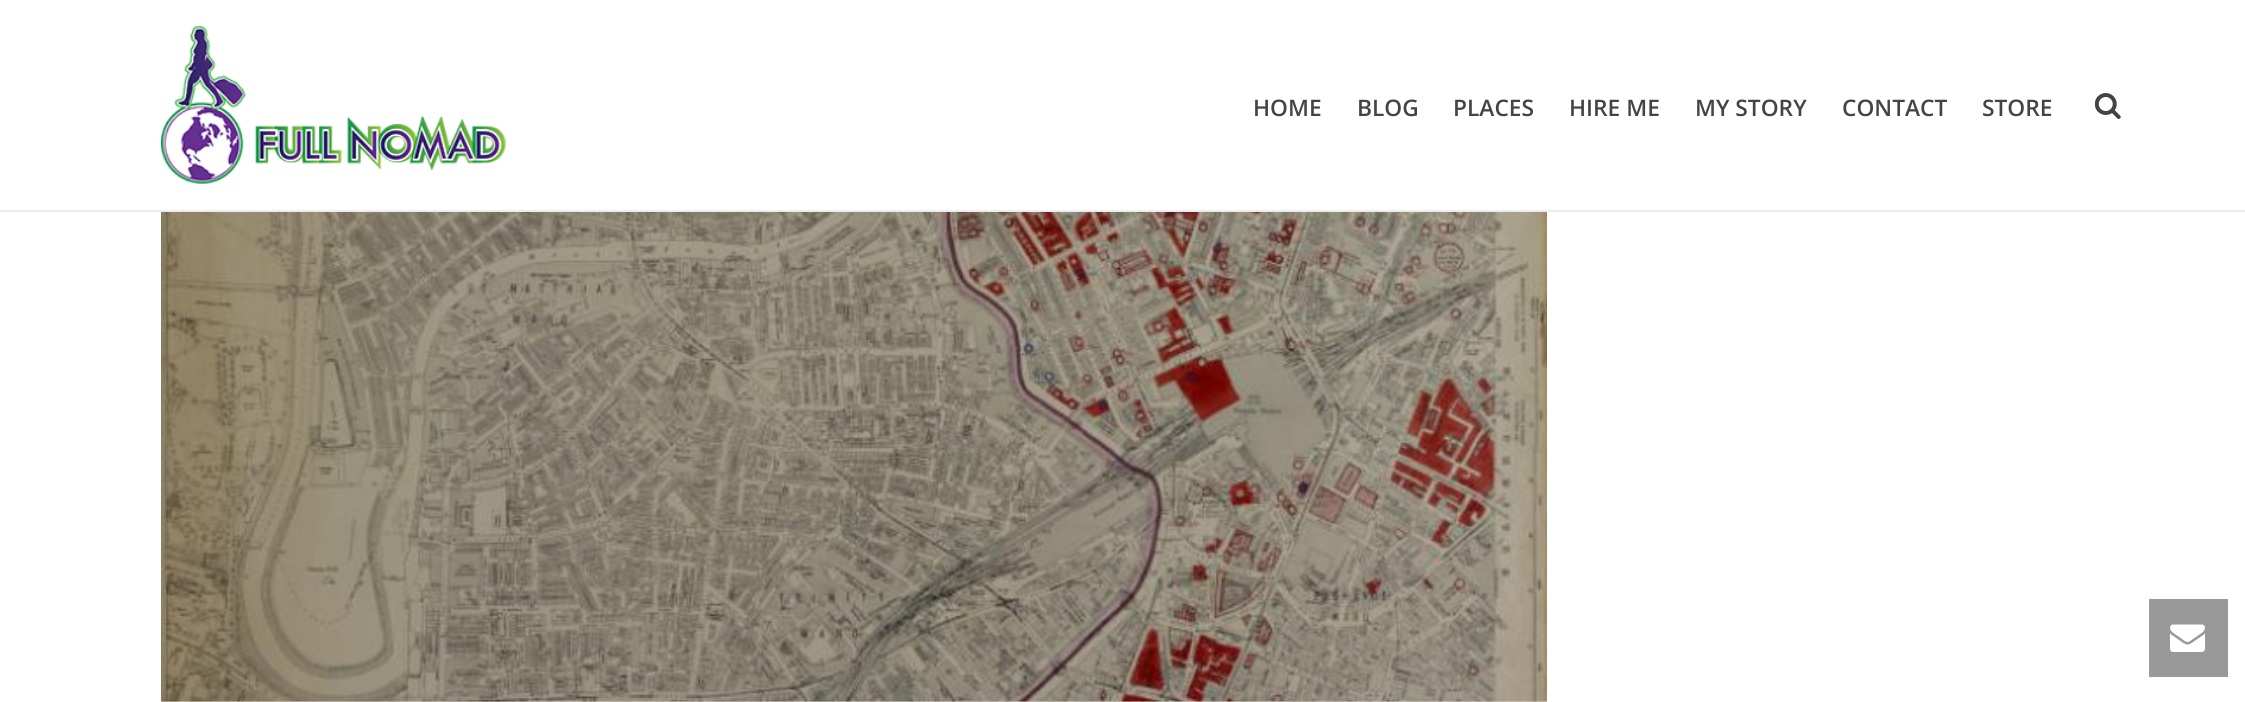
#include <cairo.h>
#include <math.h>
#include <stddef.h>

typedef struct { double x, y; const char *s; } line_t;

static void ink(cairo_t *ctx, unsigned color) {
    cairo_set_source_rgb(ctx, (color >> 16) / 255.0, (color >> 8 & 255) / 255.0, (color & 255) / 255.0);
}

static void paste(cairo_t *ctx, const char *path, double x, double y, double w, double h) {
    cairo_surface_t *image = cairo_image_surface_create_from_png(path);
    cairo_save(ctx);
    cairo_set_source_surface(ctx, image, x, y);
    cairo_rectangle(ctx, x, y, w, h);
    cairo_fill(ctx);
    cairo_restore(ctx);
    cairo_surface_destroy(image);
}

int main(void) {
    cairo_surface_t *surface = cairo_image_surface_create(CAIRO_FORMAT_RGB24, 2245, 702);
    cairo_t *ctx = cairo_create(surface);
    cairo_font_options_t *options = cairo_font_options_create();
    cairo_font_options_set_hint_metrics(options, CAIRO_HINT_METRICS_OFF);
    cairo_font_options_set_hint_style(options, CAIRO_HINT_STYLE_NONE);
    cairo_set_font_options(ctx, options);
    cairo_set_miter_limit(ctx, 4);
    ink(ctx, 0xFFFFFF);
    cairo_paint(ctx);
    ink(ctx, 0xEDEDED);
    cairo_rectangle(ctx, 0, 210, 2245, 2);
    cairo_fill(ctx);
    paste(ctx, "media/1.png", 161, 26, 345, 158);
    cairo_select_font_face(ctx, "Open Sans SemiBold", CAIRO_FONT_SLANT_NORMAL, CAIRO_FONT_WEIGHT_NORMAL);
    cairo_set_font_size(ctx, 22.75);
    ink(ctx, 0x444444);
    {
        static const line_t items[] = {
            {1253, 116, "HOME"},
            {1357, 116, "BLOG"},
            {1453, 116, "PLACES"},
            {1569, 116, "HIRE ME"},
            {1695, 116, "MY STORY"},
            {1842, 116, "CONTACT"},
            {1982, 116, "STORE"},
        };
        for (size_t i = 0; i < sizeof items / sizeof *items; i++) {
            cairo_move_to(ctx, items[i].x, items[i].y);
            cairo_show_text(ctx, items[i].s);
        }
    }
    paste(ctx, "media/2.png", 2095, 93, 26, 26);
    ink(ctx, 0xE0E0E0);
    cairo_rectangle(ctx, 161, 701, 1386, 1);
    cairo_fill(ctx);
    paste(ctx, "media/3.png", 161, 212, 1386, 490);
    ink(ctx, 0x999999);
    cairo_rectangle(ctx, 2149, 599, 79, 78);
    cairo_fill(ctx);
    paste(ctx, "media/4.png", 2170, 624, 35, 28);
    cairo_surface_write_to_png(surface, "image.png");
    cairo_font_options_destroy(options);
    cairo_destroy(ctx);
    cairo_surface_destroy(surface);
    return 0;
}
